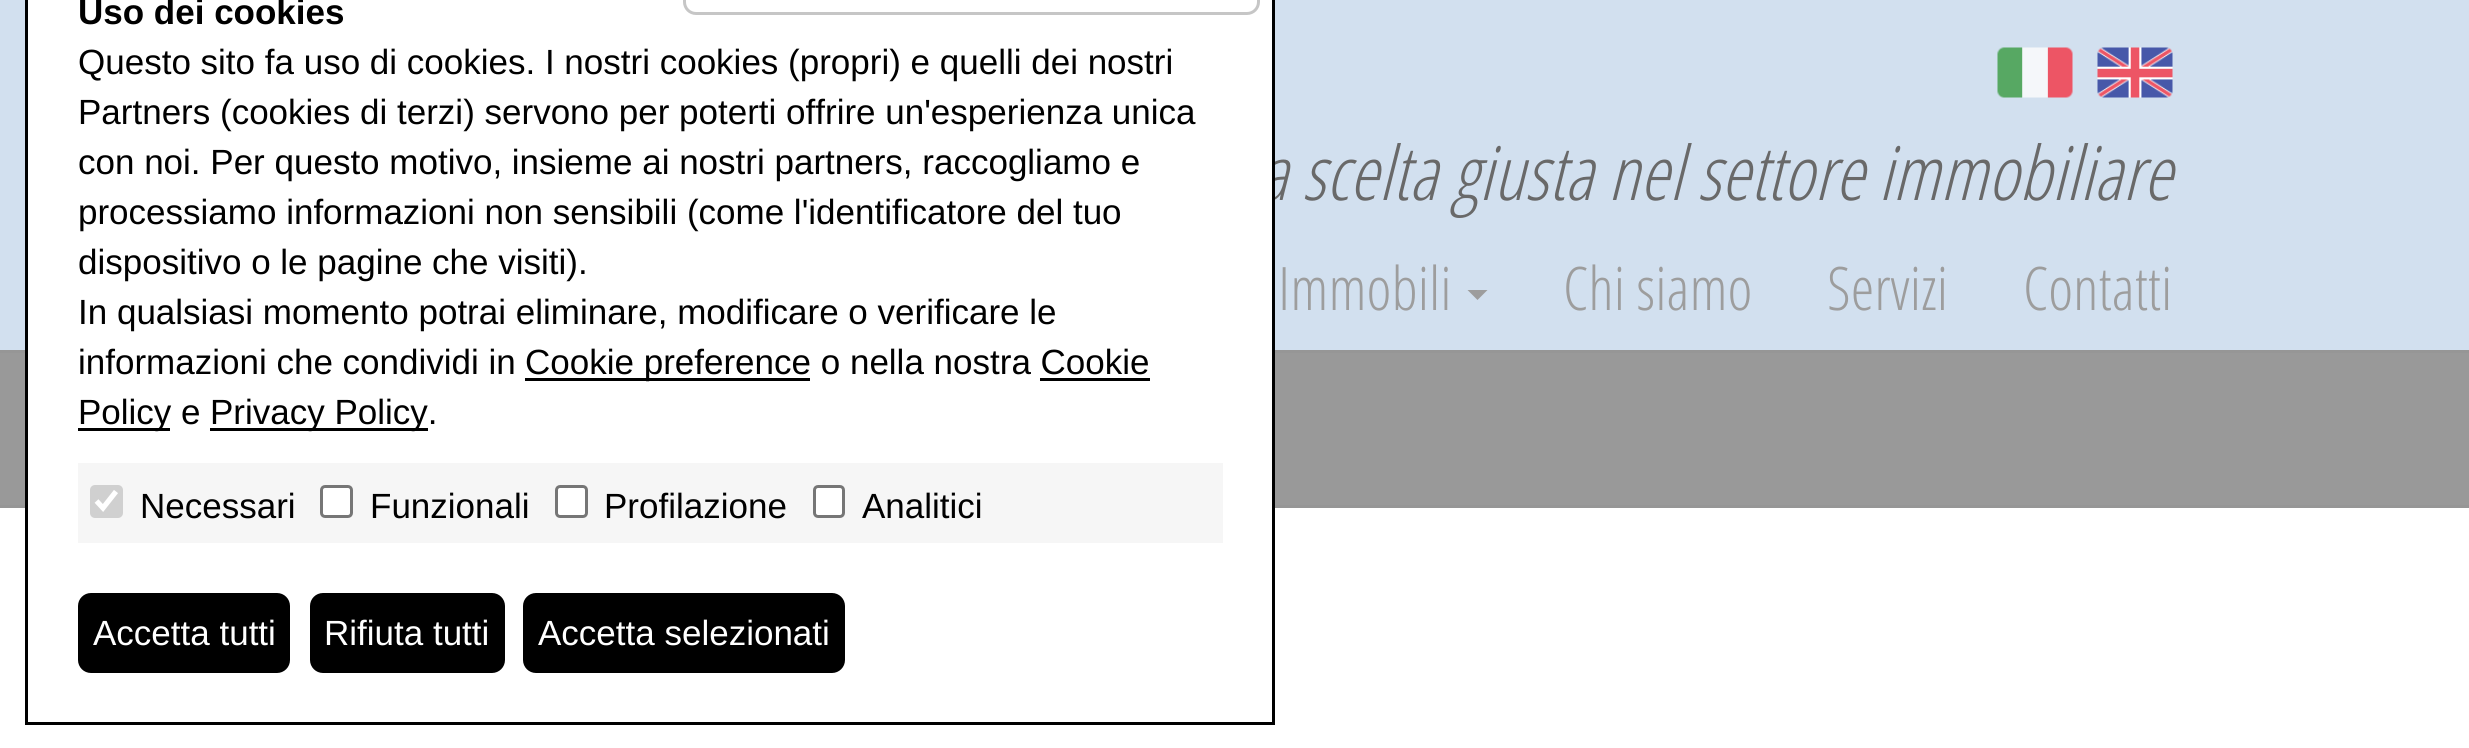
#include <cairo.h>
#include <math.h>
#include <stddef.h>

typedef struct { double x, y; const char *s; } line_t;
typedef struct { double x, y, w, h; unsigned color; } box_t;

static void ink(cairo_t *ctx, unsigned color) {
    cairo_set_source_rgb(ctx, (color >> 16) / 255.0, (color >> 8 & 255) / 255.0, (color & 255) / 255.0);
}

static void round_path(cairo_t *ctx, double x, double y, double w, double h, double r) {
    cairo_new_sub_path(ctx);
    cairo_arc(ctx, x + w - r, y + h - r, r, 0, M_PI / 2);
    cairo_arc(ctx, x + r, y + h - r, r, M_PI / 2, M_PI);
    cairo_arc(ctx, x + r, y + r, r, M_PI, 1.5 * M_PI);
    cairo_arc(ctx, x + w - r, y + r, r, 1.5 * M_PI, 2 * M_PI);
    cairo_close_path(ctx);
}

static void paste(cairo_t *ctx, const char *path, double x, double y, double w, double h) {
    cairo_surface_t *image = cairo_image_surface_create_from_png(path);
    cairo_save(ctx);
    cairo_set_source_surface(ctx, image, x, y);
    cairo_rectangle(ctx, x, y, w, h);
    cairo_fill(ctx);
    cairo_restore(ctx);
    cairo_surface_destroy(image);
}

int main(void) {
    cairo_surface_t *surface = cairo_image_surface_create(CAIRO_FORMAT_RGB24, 2469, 748);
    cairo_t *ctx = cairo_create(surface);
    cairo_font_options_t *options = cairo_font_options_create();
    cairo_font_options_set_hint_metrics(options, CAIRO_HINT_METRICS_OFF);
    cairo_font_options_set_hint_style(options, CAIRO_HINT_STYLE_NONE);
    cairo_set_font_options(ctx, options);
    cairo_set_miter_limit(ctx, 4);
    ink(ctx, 0xFFFFFF);
    cairo_paint(ctx);
    ink(ctx, 0xD2E0EF);
    cairo_rectangle(ctx, 0, 0, 2469, 350);
    cairo_fill(ctx);
    ink(ctx, 0x969696);
    cairo_rectangle(ctx, 0, 350, 2469, 3);
    cairo_fill(ctx);
    cairo_select_font_face(ctx, "Open Sans Condensed Light", CAIRO_FONT_SLANT_ITALIC, CAIRO_FONT_WEIGHT_NORMAL);
    cairo_set_font_size(ctx, 75);
    ink(ctx, 0x696969);
    cairo_move_to(ctx, 1259, 200);
    cairo_show_text(ctx, "a scelta giusta nel settore immobiliare");
    {
        static const box_t items[] = {
            {0, 353, 2469, 152, 0x999999},
            {0, 505, 2469, 3, 0x969696},
            {28, 0, 1244, 508, 0xFFFFFF},
        };
        for (size_t i = 0; i < sizeof items / sizeof *items; i++) {
            ink(ctx, items[i].color);
            cairo_rectangle(ctx, items[i].x, items[i].y, items[i].w, items[i].h);
            cairo_fill(ctx);
        }
    }
    cairo_rectangle(ctx, 26.5, -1.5, 1247, 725);
    ink(ctx, 0x000000);
    cairo_set_line_width(ctx, 3);
    cairo_stroke(ctx);
    cairo_select_font_face(ctx, "Liberation Sans", CAIRO_FONT_SLANT_NORMAL, CAIRO_FONT_WEIGHT_BOLD);
    cairo_set_font_size(ctx, 35);
    cairo_move_to(ctx, 78, 24);
    cairo_show_text(ctx, "Uso dei cookies");
    round_path(ctx, 684.5, -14.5, 574, 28, 11.5);
    ink(ctx, 0xC6C6C6);
    cairo_stroke(ctx);
    cairo_select_font_face(ctx, "Liberation Sans", CAIRO_FONT_SLANT_NORMAL, CAIRO_FONT_WEIGHT_NORMAL);
    ink(ctx, 0x000000);
    {
        static const line_t items[] = {
            {78, 74, "Questo sito fa uso di cookies. I nostri cookies (propri) e quelli dei nostri"},
            {78, 124, "Partners (cookies di terzi) servono per poterti offrire un'esperienza unica"},
            {78, 174, "con noi. Per questo motivo, insieme ai nostri partners, raccogliamo e"},
            {78, 224, "processiamo informazioni non sensibili (come l'identificatore del tuo"},
            {78, 274, "dispositivo o le pagine che visiti)."},
            {78, 324, "In qualsiasi momento potrai eliminare, modificare o verificare le"},
            {78, 374, "informazioni che condividi in"},
        };
        for (size_t i = 0; i < sizeof items / sizeof *items; i++) {
            cairo_move_to(ctx, items[i].x, items[i].y);
            cairo_show_text(ctx, items[i].s);
        }
    }
    cairo_rectangle(ctx, 525, 378, 285, 3);
    cairo_fill(ctx);
    cairo_move_to(ctx, 525, 374);
    cairo_show_text(ctx, "Cookie preference o nella nostra Cookie");
    cairo_rectangle(ctx, 78, 428, 92, 3);
    cairo_fill(ctx);
    cairo_move_to(ctx, 78, 424);
    cairo_show_text(ctx, "Policy e");
    cairo_rectangle(ctx, 1040, 378, 110, 3);
    cairo_fill(ctx);
    cairo_rectangle(ctx, 210, 428, 218, 3);
    cairo_fill(ctx);
    cairo_move_to(ctx, 210, 424);
    cairo_show_text(ctx, "Privacy Policy.");
    ink(ctx, 0xF6F6F6);
    cairo_rectangle(ctx, 78, 463, 1145, 80);
    cairo_fill(ctx);
    ink(ctx, 0xD0D0D0);
    round_path(ctx, 90, 485, 33, 33, 5);
    cairo_fill(ctx);
    cairo_new_path(ctx);
    cairo_move_to(ctx, 96.5, 501);
    cairo_line_to(ctx, 103, 508);
    cairo_line_to(ctx, 116, 491.5);
    ink(ctx, 0xFFFFFF);
    cairo_set_line_width(ctx, 5.2);
    cairo_stroke(ctx);
    ink(ctx, 0x000000);
    cairo_move_to(ctx, 140, 518);
    cairo_show_text(ctx, "Necessari");
    ink(ctx, 0xFFFFFF);
    round_path(ctx, 321.5, 486.5, 30, 30, 3.5);
    cairo_fill_preserve(ctx);
    ink(ctx, 0x767676);
    cairo_set_line_width(ctx, 3);
    cairo_stroke(ctx);
    ink(ctx, 0x000000);
    cairo_move_to(ctx, 370, 518);
    cairo_show_text(ctx, "Funzionali");
    ink(ctx, 0xFFFFFF);
    round_path(ctx, 556.5, 486.5, 30, 30, 3.5);
    cairo_fill_preserve(ctx);
    ink(ctx, 0x767676);
    cairo_stroke(ctx);
    ink(ctx, 0x000000);
    cairo_move_to(ctx, 604, 518);
    cairo_show_text(ctx, "Profilazione");
    ink(ctx, 0xFFFFFF);
    round_path(ctx, 814.5, 486.5, 29, 30, 3.5);
    cairo_fill_preserve(ctx);
    ink(ctx, 0x767676);
    cairo_stroke(ctx);
    ink(ctx, 0x000000);
    cairo_move_to(ctx, 862, 518);
    cairo_show_text(ctx, "Analitici");
    round_path(ctx, 79.5, 594.5, 209, 77, 11.5);
    cairo_fill_preserve(ctx);
    cairo_stroke(ctx);
    ink(ctx, 0xFFFFFF);
    cairo_move_to(ctx, 93, 645);
    cairo_show_text(ctx, "Accetta tutti");
    ink(ctx, 0x000000);
    round_path(ctx, 311.5, 594.5, 192, 77, 11.5);
    cairo_fill_preserve(ctx);
    cairo_stroke(ctx);
    ink(ctx, 0xFFFFFF);
    cairo_move_to(ctx, 324, 645);
    cairo_show_text(ctx, "Rifiuta tutti");
    ink(ctx, 0x000000);
    round_path(ctx, 524.5, 594.5, 319, 77, 11.5);
    cairo_fill_preserve(ctx);
    cairo_stroke(ctx);
    ink(ctx, 0xFFFFFF);
    cairo_move_to(ctx, 538, 645);
    cairo_show_text(ctx, "Accetta selezionati");
    paste(ctx, "media/1.png", 1997, 47, 76, 51);
    paste(ctx, "media/2.png", 2097, 47, 76, 51);
    cairo_select_font_face(ctx, "Open Sans Condensed Light", CAIRO_FONT_SLANT_NORMAL, CAIRO_FONT_WEIGHT_NORMAL);
    cairo_set_font_size(ctx, 60);
    ink(ctx, 0x9D9D9D);
    cairo_move_to(ctx, 1278, 310);
    cairo_show_text(ctx, "Immobili");
    cairo_new_path(ctx);
    cairo_move_to(ctx, 1467.5, 290);
    cairo_line_to(ctx, 1487.5, 290);
    cairo_line_to(ctx, 1477.5, 300);
    cairo_close_path(ctx);
    cairo_fill(ctx);
    {
        static const line_t items[] = {
            {1563, 310, "Chi siamo"},
            {1827, 310, "Servizi"},
            {2023, 310, "Contatti"},
        };
        for (size_t i = 0; i < sizeof items / sizeof *items; i++) {
            cairo_move_to(ctx, items[i].x, items[i].y);
            cairo_show_text(ctx, items[i].s);
        }
    }
    cairo_surface_write_to_png(surface, "image.png");
    cairo_font_options_destroy(options);
    cairo_destroy(ctx);
    cairo_surface_destroy(surface);
    return 0;
}
